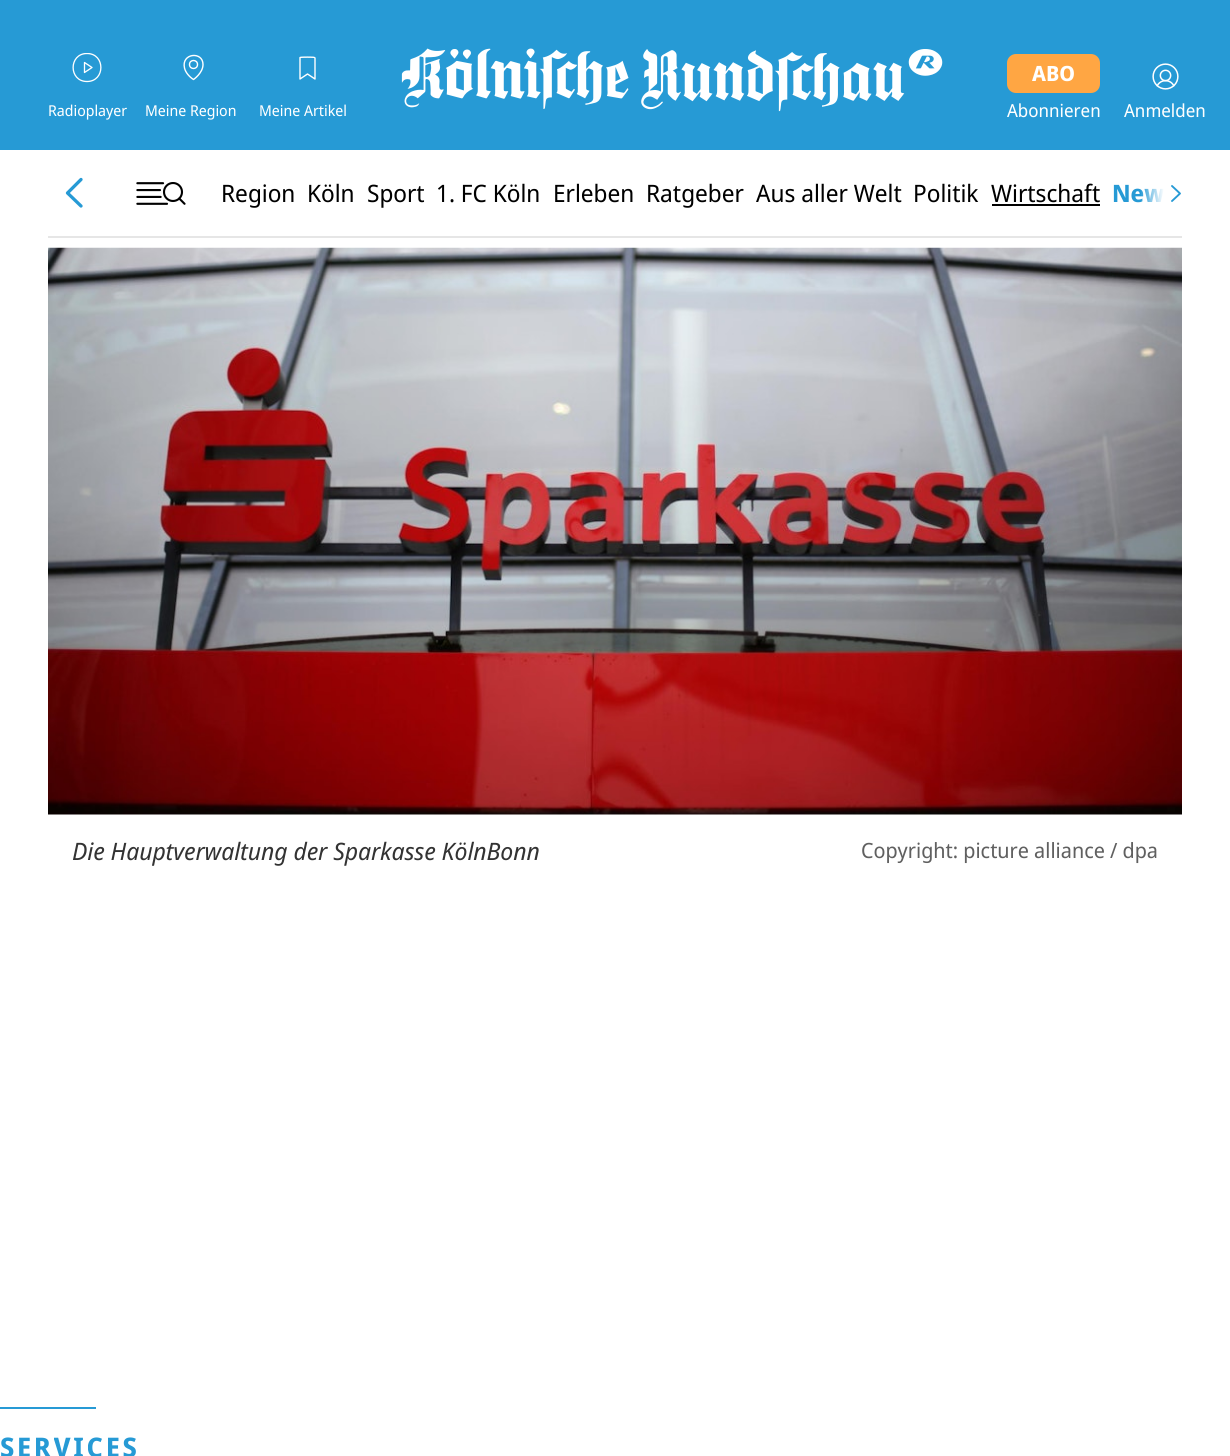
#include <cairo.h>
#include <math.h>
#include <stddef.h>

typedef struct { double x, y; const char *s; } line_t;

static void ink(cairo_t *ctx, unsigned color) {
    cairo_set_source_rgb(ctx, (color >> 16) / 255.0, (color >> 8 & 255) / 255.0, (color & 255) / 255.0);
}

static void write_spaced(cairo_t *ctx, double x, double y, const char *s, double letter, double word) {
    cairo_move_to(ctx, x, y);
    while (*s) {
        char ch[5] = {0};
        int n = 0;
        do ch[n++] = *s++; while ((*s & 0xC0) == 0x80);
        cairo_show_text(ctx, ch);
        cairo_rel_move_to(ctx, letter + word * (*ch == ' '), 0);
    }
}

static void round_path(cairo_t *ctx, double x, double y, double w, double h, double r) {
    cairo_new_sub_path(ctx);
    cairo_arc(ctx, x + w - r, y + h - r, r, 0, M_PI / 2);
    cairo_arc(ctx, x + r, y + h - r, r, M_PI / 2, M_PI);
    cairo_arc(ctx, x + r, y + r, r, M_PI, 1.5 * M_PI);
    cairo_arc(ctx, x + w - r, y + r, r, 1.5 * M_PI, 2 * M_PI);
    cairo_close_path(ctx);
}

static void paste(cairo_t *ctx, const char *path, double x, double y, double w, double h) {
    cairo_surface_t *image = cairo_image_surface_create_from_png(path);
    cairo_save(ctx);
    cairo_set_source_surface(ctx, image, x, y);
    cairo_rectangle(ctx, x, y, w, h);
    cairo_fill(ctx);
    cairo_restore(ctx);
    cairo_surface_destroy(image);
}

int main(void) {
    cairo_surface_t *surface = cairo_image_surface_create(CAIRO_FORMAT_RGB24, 1230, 1456);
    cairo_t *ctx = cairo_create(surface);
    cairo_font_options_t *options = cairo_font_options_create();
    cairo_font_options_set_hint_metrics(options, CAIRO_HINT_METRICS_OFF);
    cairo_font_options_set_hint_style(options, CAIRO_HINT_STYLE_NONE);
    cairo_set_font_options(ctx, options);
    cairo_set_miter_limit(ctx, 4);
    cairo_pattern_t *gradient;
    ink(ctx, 0xFFFFFF);
    cairo_paint(ctx);
    ink(ctx, 0x269AD5);
    cairo_rectangle(ctx, 0, 0, 1230, 150);
    cairo_fill(ctx);
    cairo_save(ctx);
    cairo_rectangle(ctx, 69, 53, 36, 30);
    cairo_clip(ctx);
    cairo_new_path(ctx);
    cairo_move_to(ctx, 87, 81.5);
    cairo_curve_to(ctx, 105.5, 81.5, 105.5, 53.5, 87, 53.5);
    cairo_curve_to(ctx, 68.5, 53.5, 68.5, 81.5, 87, 81.5);
    cairo_close_path(ctx);
    ink(ctx, 0xFFFFFF);
    cairo_set_line_width(ctx, 1.3);
    cairo_set_line_cap(ctx, CAIRO_LINE_CAP_ROUND);
    cairo_set_line_join(ctx, CAIRO_LINE_JOIN_ROUND);
    cairo_stroke(ctx);
    cairo_restore(ctx);
    cairo_new_path(ctx);
    cairo_move_to(ctx, 92, 67.5);
    cairo_line_to(ctx, 84.5, 62.5);
    cairo_line_to(ctx, 84.5, 72.5);
    cairo_close_path(ctx);
    ink(ctx, 0xFFFFFF);
    cairo_set_line_width(ctx, 1.3);
    cairo_set_line_cap(ctx, CAIRO_LINE_CAP_ROUND);
    cairo_set_line_join(ctx, CAIRO_LINE_JOIN_ROUND);
    cairo_stroke(ctx);
    cairo_select_font_face(ctx, "Noto Sans Display", CAIRO_FONT_SLANT_NORMAL, CAIRO_FONT_WEIGHT_NORMAL);
    cairo_set_font_size(ctx, 15);
    cairo_move_to(ctx, 48, 116);
    cairo_show_text(ctx, "Radioplayer");
    cairo_new_path(ctx);
    cairo_arc(ctx, 193.5, 64.5, 4, 0, 2 * M_PI);
    cairo_set_line_width(ctx, 1.4);
    cairo_set_line_cap(ctx, CAIRO_LINE_CAP_BUTT);
    cairo_set_line_join(ctx, CAIRO_LINE_JOIN_MITER);
    cairo_stroke(ctx);
    cairo_new_path(ctx);
    cairo_move_to(ctx, 203, 64.5);
    cairo_curve_to(ctx, 203, 73, 193.5, 79.5, 193.5, 79.5);
    cairo_curve_to(ctx, 189.5, 77, 185.5, 72.5, 184.5, 68);
    cairo_curve_to(ctx, 181, 53, 203, 51, 203, 64.5);
    cairo_close_path(ctx);
    cairo_set_line_cap(ctx, CAIRO_LINE_CAP_ROUND);
    cairo_set_line_join(ctx, CAIRO_LINE_JOIN_ROUND);
    cairo_stroke(ctx);
    cairo_move_to(ctx, 145, 116);
    cairo_show_text(ctx, "Meine Region");
    cairo_new_path(ctx);
    cairo_move_to(ctx, 315, 79);
    cairo_line_to(ctx, 307.5, 74);
    cairo_line_to(ctx, 300, 79);
    cairo_line_to(ctx, 300, 57.5);
    cairo_curve_to(ctx, 300.5, 57, 314, 57, 314.5, 57.5);
    cairo_line_to(ctx, 315, 58);
    cairo_close_path(ctx);
    cairo_stroke(ctx);
    cairo_move_to(ctx, 259, 116);
    cairo_show_text(ctx, "Meine Artikel");
    paste(ctx, "media/1.png", 401, 48, 542, 64);
    ink(ctx, 0xFFA643);
    round_path(ctx, 1007, 54, 93, 39, 9);
    cairo_fill(ctx);
    cairo_select_font_face(ctx, "Noto Sans Display", CAIRO_FONT_SLANT_NORMAL, CAIRO_FONT_WEIGHT_BOLD);
    cairo_set_font_size(ctx, 21);
    ink(ctx, 0xFFFFFF);
    cairo_move_to(ctx, 1032, 81);
    cairo_show_text(ctx, "ABO");
    cairo_select_font_face(ctx, "Noto Sans Display", CAIRO_FONT_SLANT_NORMAL, CAIRO_FONT_WEIGHT_NORMAL);
    cairo_set_font_size(ctx, 18);
    cairo_move_to(ctx, 1007, 117);
    cairo_show_text(ctx, "Abonnieren");
    paste(ctx, "media/2.png", 1152, 63, 27, 27);
    cairo_move_to(ctx, 1124, 117);
    cairo_show_text(ctx, "Anmelden");
    ink(ctx, 0xE6E6E6);
    cairo_rectangle(ctx, 48, 236, 1134, 2);
    cairo_fill(ctx);
    cairo_new_path(ctx);
    cairo_move_to(ctx, 81, 179.5);
    cairo_line_to(ctx, 67.5, 193);
    cairo_line_to(ctx, 81, 206);
    ink(ctx, 0x269AD5);
    cairo_set_line_width(ctx, 3.3);
    cairo_stroke(ctx);
    paste(ctx, "media/3.png", 136, 182, 50, 23);
    cairo_set_font_size(ctx, 24);
    ink(ctx, 0x000000);
    {
        static const line_t items[] = {
            {221, 202, "Region"},
            {307, 202, "Köln"},
            {367, 202, "Sport"},
            {436, 202, "1. FC Köln"},
            {553, 202, "Erleben"},
            {646, 202, "Ratgeber"},
            {756, 202, "Aus aller Welt"},
            {913, 202, "Politik"},
            {991, 202, "Wirtschaft"},
        };
        for (size_t i = 0; i < sizeof items / sizeof *items; i++) {
            cairo_move_to(ctx, items[i].x, items[i].y);
            cairo_show_text(ctx, items[i].s);
        }
    }
    cairo_rectangle(ctx, 992, 204, 108, 2);
    cairo_fill(ctx);
    cairo_select_font_face(ctx, "Noto Sans Display", CAIRO_FONT_SLANT_NORMAL, CAIRO_FONT_WEIGHT_BOLD);
    ink(ctx, 0x269AD5);
    cairo_move_to(ctx, 1112, 202);
    cairo_show_text(ctx, "New");
    gradient = cairo_pattern_create_linear(1188, 193, 1140, 193);
    cairo_pattern_add_color_stop_rgba(gradient, 0, 1, 1, 1, 1);
    cairo_pattern_add_color_stop_rgba(gradient, 0.5, 1, 1, 1, 1);
    cairo_pattern_add_color_stop_rgba(gradient, 1, 1, 1, 1, 0);
    cairo_set_source(ctx, gradient);
    cairo_pattern_destroy(gradient);
    cairo_rectangle(ctx, 1141, 188, 23, 14);
    cairo_fill(ctx);
    cairo_new_path(ctx);
    cairo_move_to(ctx, 1172, 201);
    cairo_line_to(ctx, 1180, 193.5);
    cairo_line_to(ctx, 1172, 186);
    ink(ctx, 0x269AD5);
    cairo_set_line_width(ctx, 1.9);
    cairo_stroke(ctx);
    paste(ctx, "media/4.png", 48, 247, 1134, 568);
    cairo_select_font_face(ctx, "Noto Sans Display", CAIRO_FONT_SLANT_ITALIC, CAIRO_FONT_WEIGHT_NORMAL);
    ink(ctx, 0x333333);
    cairo_move_to(ctx, 72, 860);
    cairo_show_text(ctx, "Die Hauptverwaltung der Sparkasse KölnBonn");
    cairo_select_font_face(ctx, "Noto Sans Display", CAIRO_FONT_SLANT_NORMAL, CAIRO_FONT_WEIGHT_NORMAL);
    cairo_set_font_size(ctx, 21);
    ink(ctx, 0x606060);
    cairo_move_to(ctx, 861, 858);
    cairo_show_text(ctx, "Copyright: picture alliance / dpa");
    ink(ctx, 0x269AD5);
    cairo_rectangle(ctx, 0, 1407, 96, 2);
    cairo_fill(ctx);
    cairo_select_font_face(ctx, "Noto Sans Display", CAIRO_FONT_SLANT_NORMAL, CAIRO_FONT_WEIGHT_BOLD);
    cairo_set_font_size(ctx, 27);
    write_spaced(ctx, 0, 1457, "SERVICES", 2.75, 0);
    cairo_surface_write_to_png(surface, "image.png");
    cairo_font_options_destroy(options);
    cairo_destroy(ctx);
    cairo_surface_destroy(surface);
    return 0;
}
